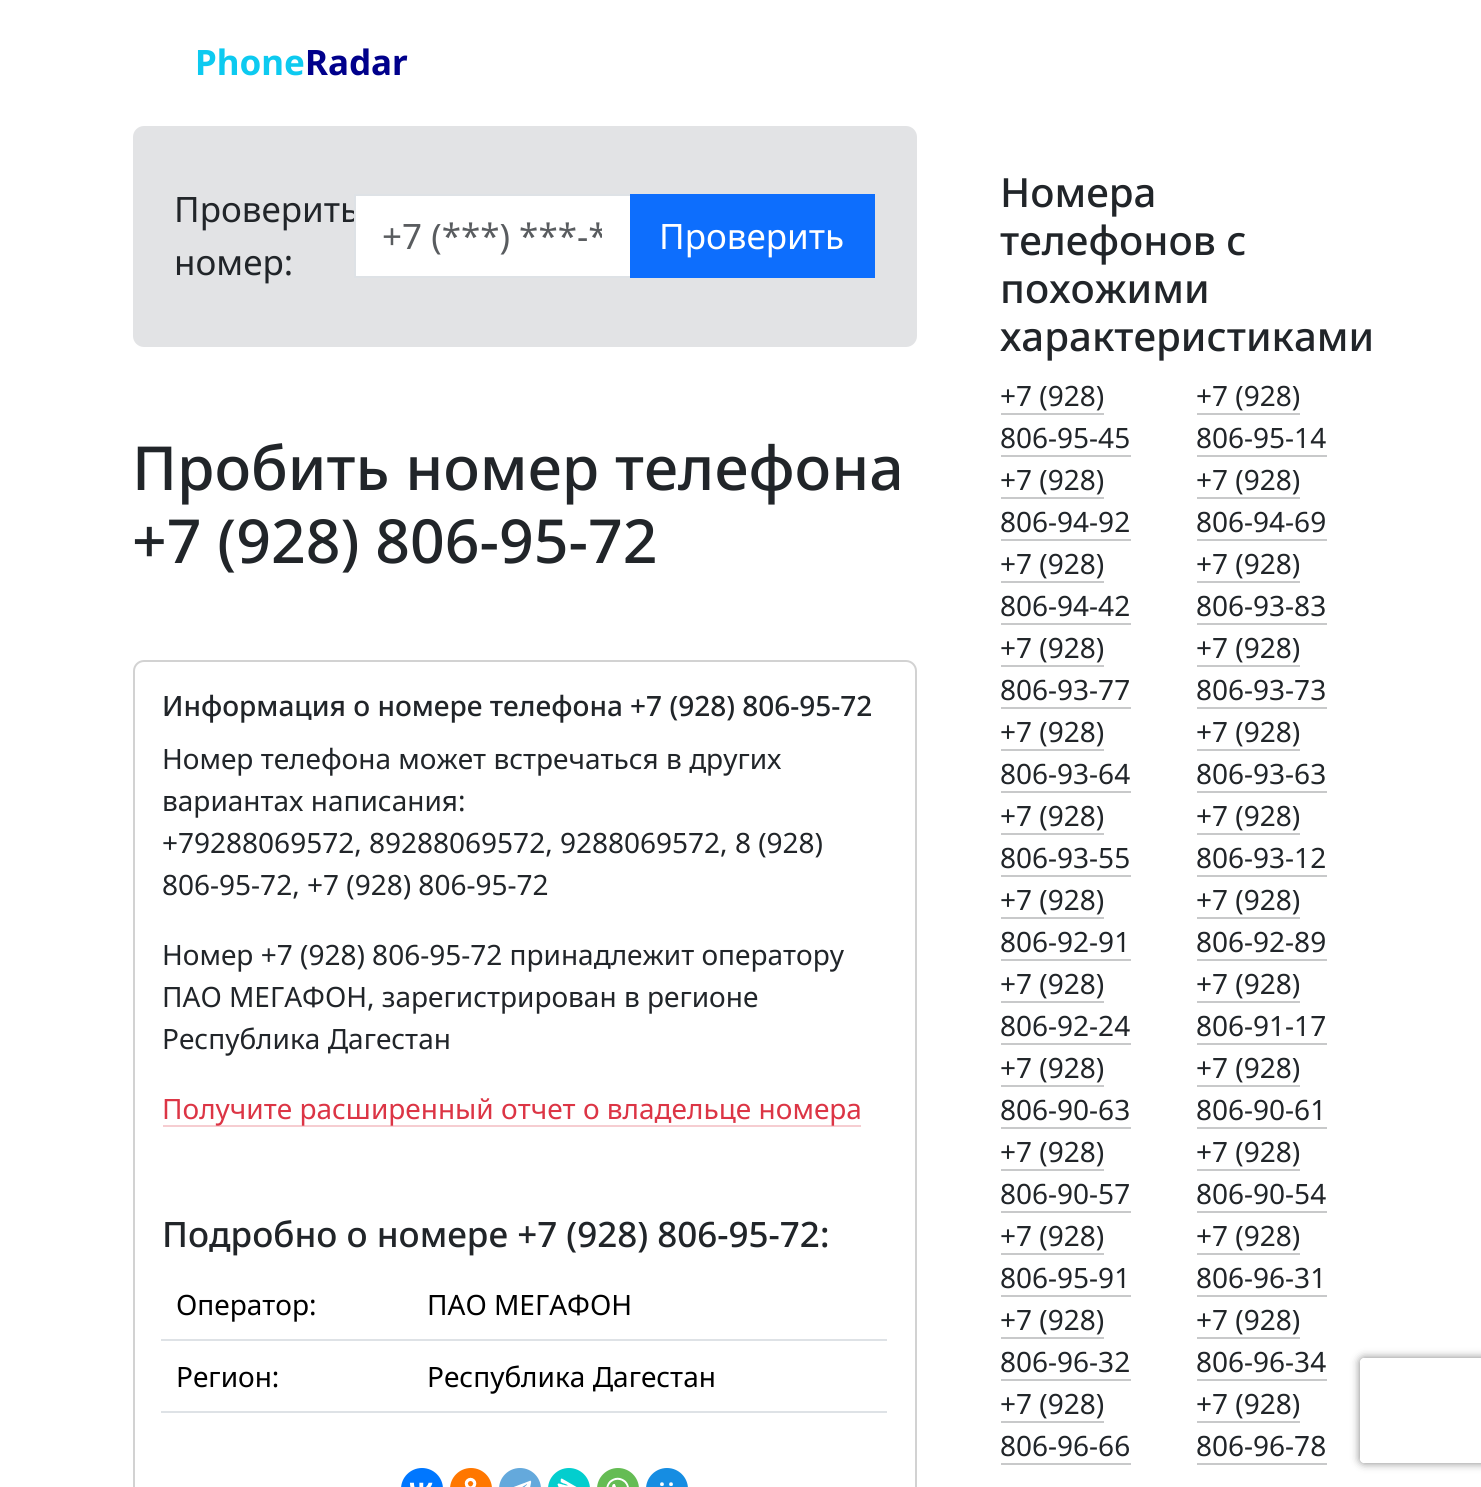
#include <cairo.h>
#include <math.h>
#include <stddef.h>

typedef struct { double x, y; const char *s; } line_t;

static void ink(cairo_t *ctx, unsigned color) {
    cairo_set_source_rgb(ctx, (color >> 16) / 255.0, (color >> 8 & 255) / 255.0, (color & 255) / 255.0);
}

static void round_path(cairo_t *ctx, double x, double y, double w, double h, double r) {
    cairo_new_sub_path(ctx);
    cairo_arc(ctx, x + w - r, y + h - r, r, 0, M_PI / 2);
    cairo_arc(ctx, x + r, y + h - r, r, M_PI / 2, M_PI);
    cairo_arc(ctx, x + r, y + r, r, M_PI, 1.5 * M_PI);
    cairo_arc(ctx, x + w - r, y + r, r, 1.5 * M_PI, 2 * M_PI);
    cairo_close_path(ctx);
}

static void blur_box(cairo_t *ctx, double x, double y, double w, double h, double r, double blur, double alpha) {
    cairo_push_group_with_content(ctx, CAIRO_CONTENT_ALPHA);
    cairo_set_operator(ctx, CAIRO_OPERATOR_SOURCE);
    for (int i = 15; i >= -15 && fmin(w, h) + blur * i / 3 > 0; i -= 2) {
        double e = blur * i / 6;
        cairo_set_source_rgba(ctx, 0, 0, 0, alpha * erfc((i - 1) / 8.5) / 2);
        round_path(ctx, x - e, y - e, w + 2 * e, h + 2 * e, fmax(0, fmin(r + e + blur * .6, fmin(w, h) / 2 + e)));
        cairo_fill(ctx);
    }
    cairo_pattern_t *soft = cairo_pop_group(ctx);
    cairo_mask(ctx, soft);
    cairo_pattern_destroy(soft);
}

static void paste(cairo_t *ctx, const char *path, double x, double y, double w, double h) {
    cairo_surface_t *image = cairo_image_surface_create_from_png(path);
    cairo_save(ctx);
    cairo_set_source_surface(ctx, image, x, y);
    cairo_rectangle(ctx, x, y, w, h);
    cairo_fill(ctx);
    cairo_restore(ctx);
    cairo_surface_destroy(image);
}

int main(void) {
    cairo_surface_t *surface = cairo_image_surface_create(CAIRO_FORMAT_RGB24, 1481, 1487);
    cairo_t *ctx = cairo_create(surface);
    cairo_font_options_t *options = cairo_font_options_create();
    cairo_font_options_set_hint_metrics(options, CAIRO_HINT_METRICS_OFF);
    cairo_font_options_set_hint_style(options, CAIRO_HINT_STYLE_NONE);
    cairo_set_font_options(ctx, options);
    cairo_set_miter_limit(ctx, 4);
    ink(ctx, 0xFFFFFF);
    cairo_paint(ctx);
    cairo_select_font_face(ctx, "Noto Sans", CAIRO_FONT_SLANT_NORMAL, CAIRO_FONT_WEIGHT_BOLD);
    cairo_set_font_size(ctx, 35);
    ink(ctx, 0x0DCAF0);
    cairo_move_to(ctx, 195, 75);
    cairo_show_text(ctx, "Phone");
    ink(ctx, 0x00008B);
    cairo_move_to(ctx, 305, 75);
    cairo_show_text(ctx, "Radar");
    ink(ctx, 0xE2E3E5);
    round_path(ctx, 133, 126, 784, 221, 11);
    cairo_fill(ctx);
    cairo_select_font_face(ctx, "Noto Sans", CAIRO_FONT_SLANT_NORMAL, CAIRO_FONT_WEIGHT_NORMAL);
    ink(ctx, 0x212529);
    cairo_move_to(ctx, 174, 222);
    cairo_show_text(ctx, "Проверить");
    cairo_move_to(ctx, 174, 275);
    cairo_show_text(ctx, "номер:");
    ink(ctx, 0xFFFFFF);
    cairo_rectangle(ctx, 355, 195, 276, 82);
    cairo_fill_preserve(ctx);
    ink(ctx, 0xDEE2E6);
    cairo_stroke(ctx);
    cairo_save(ctx);
    cairo_rectangle(ctx, 383, 212, 219, 47);
    cairo_clip(ctx);
    ink(ctx, 0x595C5F);
    cairo_move_to(ctx, 382, 249);
    cairo_show_text(ctx, "+7 (***) ***-*");
    cairo_restore(ctx);
    ink(ctx, 0x0D6EFD);
    cairo_rectangle(ctx, 630, 194, 245, 84);
    cairo_fill(ctx);
    ink(ctx, 0xFFFFFF);
    cairo_move_to(ctx, 659, 249);
    cairo_show_text(ctx, "Проверить");
    cairo_select_font_face(ctx, "Noto Sans Medium", CAIRO_FONT_SLANT_NORMAL, CAIRO_FONT_WEIGHT_NORMAL);
    cairo_set_font_size(ctx, 60.75);
    ink(ctx, 0x212529);
    cairo_move_to(ctx, 132, 490);
    cairo_show_text(ctx, "Пробить номер телефона");
    cairo_move_to(ctx, 132, 563);
    cairo_show_text(ctx, "+7 (928) 806-95-72");
    round_path(ctx, 134, 661, 782, 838, 10);
    ink(ctx, 0xD2D2D2);
    cairo_stroke(ctx);
    cairo_set_font_size(ctx, 28);
    ink(ctx, 0x212529);
    cairo_move_to(ctx, 162, 716);
    cairo_show_text(ctx, "Информация о номере телефона +7 (928) 806-95-72");
    cairo_select_font_face(ctx, "Noto Sans", CAIRO_FONT_SLANT_NORMAL, CAIRO_FONT_WEIGHT_NORMAL);
    {
        static const line_t items[] = {
            {162, 769, "Номер телефона может встречаться в других"},
            {162, 811, "вариантах написания:"},
            {162, 853, "+79288069572, 89288069572, 9288069572, 8 (928)"},
            {162, 895, "806-95-72, +7 (928) 806-95-72"},
            {162, 965, "Номер +7 (928) 806-95-72 принадлежит оператору"},
            {162, 1007, "ПАО МЕГАФОН, зарегистрирован в регионе"},
            {162, 1049, "Республика Дагестан"},
        };
        for (size_t i = 0; i < sizeof items / sizeof *items; i++) {
            cairo_move_to(ctx, items[i].x, items[i].y);
            cairo_show_text(ctx, items[i].s);
        }
    }
    ink(ctx, 0xF6CDD1);
    cairo_rectangle(ctx, 163, 1125, 698, 2);
    cairo_fill(ctx);
    ink(ctx, 0xDC3545);
    cairo_move_to(ctx, 162, 1119);
    cairo_show_text(ctx, "Получите расширенный отчет о владельце номера");
    cairo_select_font_face(ctx, "Noto Sans Medium", CAIRO_FONT_SLANT_NORMAL, CAIRO_FONT_WEIGHT_NORMAL);
    cairo_set_font_size(ctx, 35);
    ink(ctx, 0x212529);
    cairo_move_to(ctx, 162, 1247);
    cairo_show_text(ctx, "Подробно о номере +7 (928) 806-95-72:");
    cairo_select_font_face(ctx, "Noto Sans", CAIRO_FONT_SLANT_NORMAL, CAIRO_FONT_WEIGHT_NORMAL);
    cairo_set_font_size(ctx, 28);
    ink(ctx, 0x000000);
    cairo_move_to(ctx, 176, 1315);
    cairo_show_text(ctx, "Оператор:");
    ink(ctx, 0xDEE2E6);
    cairo_rectangle(ctx, 161, 1339, 726, 2);
    cairo_fill(ctx);
    ink(ctx, 0x000000);
    cairo_move_to(ctx, 427, 1315);
    cairo_show_text(ctx, "ПАО МЕГАФОН");
    cairo_move_to(ctx, 176, 1387);
    cairo_show_text(ctx, "Регион:");
    ink(ctx, 0xDEE2E6);
    cairo_rectangle(ctx, 161, 1411, 726, 2);
    cairo_fill(ctx);
    ink(ctx, 0x000000);
    cairo_move_to(ctx, 427, 1387);
    cairo_show_text(ctx, "Республика Дагестан");
    ink(ctx, 0x0077FF);
    round_path(ctx, 401, 1468, 42, 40, 21);
    cairo_fill(ctx);
    paste(ctx, "media/1.png", 409, 1482, 24, 5);
    ink(ctx, 0xFF7700);
    round_path(ctx, 450, 1468, 42, 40, 21);
    cairo_fill(ctx);
    paste(ctx, "media/2.png", 464, 1477, 13, 10);
    ink(ctx, 0x64A9DC);
    round_path(ctx, 499, 1468, 42, 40, 21);
    cairo_fill(ctx);
    paste(ctx, "media/3.png", 513, 1480, 19, 7);
    ink(ctx, 0x03CECE);
    round_path(ctx, 548, 1468, 42, 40, 21);
    cairo_fill(ctx);
    paste(ctx, "media/4.png", 557, 1478, 20, 9);
    ink(ctx, 0x65BC54);
    round_path(ctx, 597, 1468, 42, 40, 21);
    cairo_fill(ctx);
    paste(ctx, "media/5.png", 606, 1477, 23, 10);
    ink(ctx, 0x168DE2);
    round_path(ctx, 646, 1468, 42, 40, 21);
    cairo_fill(ctx);
    paste(ctx, "media/6.png", 660, 1482, 13, 4);
    cairo_select_font_face(ctx, "Noto Sans Medium", CAIRO_FONT_SLANT_NORMAL, CAIRO_FONT_WEIGHT_NORMAL);
    cairo_set_font_size(ctx, 40.25);
    ink(ctx, 0x212529);
    {
        static const line_t items[] = {
            {1000, 207, "Номера"},
            {1000, 255, "телефонов с"},
            {1000, 303, "похожими"},
            {1000, 351, "характеристиками"},
        };
        for (size_t i = 0; i < sizeof items / sizeof *items; i++) {
            cairo_move_to(ctx, items[i].x, items[i].y);
            cairo_show_text(ctx, items[i].s);
        }
    }
    cairo_select_font_face(ctx, "Noto Sans", CAIRO_FONT_SLANT_NORMAL, CAIRO_FONT_WEIGHT_NORMAL);
    cairo_set_font_size(ctx, 28);
    cairo_move_to(ctx, 1000, 406);
    cairo_show_text(ctx, "+7 (928)");
    ink(ctx, 0xC8C9CA);
    cairo_rectangle(ctx, 1001, 413, 103, 2);
    cairo_fill(ctx);
    ink(ctx, 0x212529);
    cairo_move_to(ctx, 1000, 448);
    cairo_show_text(ctx, "806-95-45");
    ink(ctx, 0xC8C9CA);
    cairo_rectangle(ctx, 1001, 455, 130, 2);
    cairo_fill(ctx);
    ink(ctx, 0x212529);
    cairo_move_to(ctx, 1196, 406);
    cairo_show_text(ctx, "+7 (928)");
    ink(ctx, 0xC8C9CA);
    cairo_rectangle(ctx, 1197, 413, 103, 2);
    cairo_fill(ctx);
    ink(ctx, 0x212529);
    cairo_move_to(ctx, 1196, 448);
    cairo_show_text(ctx, "806-95-14");
    ink(ctx, 0xC8C9CA);
    cairo_rectangle(ctx, 1197, 455, 130, 2);
    cairo_fill(ctx);
    ink(ctx, 0x212529);
    cairo_move_to(ctx, 1000, 490);
    cairo_show_text(ctx, "+7 (928)");
    ink(ctx, 0xC8C9CA);
    cairo_rectangle(ctx, 1001, 497, 103, 2);
    cairo_fill(ctx);
    ink(ctx, 0x212529);
    cairo_move_to(ctx, 1000, 532);
    cairo_show_text(ctx, "806-94-92");
    ink(ctx, 0xC8C9CA);
    cairo_rectangle(ctx, 1001, 539, 130, 2);
    cairo_fill(ctx);
    ink(ctx, 0x212529);
    cairo_move_to(ctx, 1196, 490);
    cairo_show_text(ctx, "+7 (928)");
    ink(ctx, 0xC8C9CA);
    cairo_rectangle(ctx, 1197, 497, 103, 2);
    cairo_fill(ctx);
    ink(ctx, 0x212529);
    cairo_move_to(ctx, 1196, 532);
    cairo_show_text(ctx, "806-94-69");
    ink(ctx, 0xC8C9CA);
    cairo_rectangle(ctx, 1197, 539, 130, 2);
    cairo_fill(ctx);
    ink(ctx, 0x212529);
    cairo_move_to(ctx, 1000, 574);
    cairo_show_text(ctx, "+7 (928)");
    ink(ctx, 0xC8C9CA);
    cairo_rectangle(ctx, 1001, 581, 103, 2);
    cairo_fill(ctx);
    ink(ctx, 0x212529);
    cairo_move_to(ctx, 1000, 616);
    cairo_show_text(ctx, "806-94-42");
    ink(ctx, 0xC8C9CA);
    cairo_rectangle(ctx, 1001, 623, 130, 2);
    cairo_fill(ctx);
    ink(ctx, 0x212529);
    cairo_move_to(ctx, 1196, 574);
    cairo_show_text(ctx, "+7 (928)");
    ink(ctx, 0xC8C9CA);
    cairo_rectangle(ctx, 1197, 581, 103, 2);
    cairo_fill(ctx);
    ink(ctx, 0x212529);
    cairo_move_to(ctx, 1196, 616);
    cairo_show_text(ctx, "806-93-83");
    ink(ctx, 0xC8C9CA);
    cairo_rectangle(ctx, 1197, 623, 130, 2);
    cairo_fill(ctx);
    ink(ctx, 0x212529);
    cairo_move_to(ctx, 1000, 658);
    cairo_show_text(ctx, "+7 (928)");
    ink(ctx, 0xC8C9CA);
    cairo_rectangle(ctx, 1001, 665, 103, 2);
    cairo_fill(ctx);
    ink(ctx, 0x212529);
    cairo_move_to(ctx, 1000, 700);
    cairo_show_text(ctx, "806-93-77");
    ink(ctx, 0xC8C9CA);
    cairo_rectangle(ctx, 1001, 707, 130, 2);
    cairo_fill(ctx);
    ink(ctx, 0x212529);
    cairo_move_to(ctx, 1196, 658);
    cairo_show_text(ctx, "+7 (928)");
    ink(ctx, 0xC8C9CA);
    cairo_rectangle(ctx, 1197, 665, 103, 2);
    cairo_fill(ctx);
    ink(ctx, 0x212529);
    cairo_move_to(ctx, 1196, 700);
    cairo_show_text(ctx, "806-93-73");
    ink(ctx, 0xC8C9CA);
    cairo_rectangle(ctx, 1197, 707, 130, 2);
    cairo_fill(ctx);
    ink(ctx, 0x212529);
    cairo_move_to(ctx, 1000, 742);
    cairo_show_text(ctx, "+7 (928)");
    ink(ctx, 0xC8C9CA);
    cairo_rectangle(ctx, 1001, 749, 103, 2);
    cairo_fill(ctx);
    ink(ctx, 0x212529);
    cairo_move_to(ctx, 1000, 784);
    cairo_show_text(ctx, "806-93-64");
    ink(ctx, 0xC8C9CA);
    cairo_rectangle(ctx, 1001, 791, 130, 2);
    cairo_fill(ctx);
    ink(ctx, 0x212529);
    cairo_move_to(ctx, 1196, 742);
    cairo_show_text(ctx, "+7 (928)");
    ink(ctx, 0xC8C9CA);
    cairo_rectangle(ctx, 1197, 749, 103, 2);
    cairo_fill(ctx);
    ink(ctx, 0x212529);
    cairo_move_to(ctx, 1196, 784);
    cairo_show_text(ctx, "806-93-63");
    ink(ctx, 0xC8C9CA);
    cairo_rectangle(ctx, 1197, 791, 130, 2);
    cairo_fill(ctx);
    ink(ctx, 0x212529);
    cairo_move_to(ctx, 1000, 826);
    cairo_show_text(ctx, "+7 (928)");
    ink(ctx, 0xC8C9CA);
    cairo_rectangle(ctx, 1001, 833, 103, 2);
    cairo_fill(ctx);
    ink(ctx, 0x212529);
    cairo_move_to(ctx, 1000, 868);
    cairo_show_text(ctx, "806-93-55");
    ink(ctx, 0xC8C9CA);
    cairo_rectangle(ctx, 1001, 875, 130, 2);
    cairo_fill(ctx);
    ink(ctx, 0x212529);
    cairo_move_to(ctx, 1196, 826);
    cairo_show_text(ctx, "+7 (928)");
    ink(ctx, 0xC8C9CA);
    cairo_rectangle(ctx, 1197, 833, 103, 2);
    cairo_fill(ctx);
    ink(ctx, 0x212529);
    cairo_move_to(ctx, 1196, 868);
    cairo_show_text(ctx, "806-93-12");
    ink(ctx, 0xC8C9CA);
    cairo_rectangle(ctx, 1197, 875, 130, 2);
    cairo_fill(ctx);
    ink(ctx, 0x212529);
    cairo_move_to(ctx, 1000, 910);
    cairo_show_text(ctx, "+7 (928)");
    ink(ctx, 0xC8C9CA);
    cairo_rectangle(ctx, 1001, 917, 103, 2);
    cairo_fill(ctx);
    ink(ctx, 0x212529);
    cairo_move_to(ctx, 1000, 952);
    cairo_show_text(ctx, "806-92-91");
    ink(ctx, 0xC8C9CA);
    cairo_rectangle(ctx, 1001, 959, 130, 2);
    cairo_fill(ctx);
    ink(ctx, 0x212529);
    cairo_move_to(ctx, 1196, 910);
    cairo_show_text(ctx, "+7 (928)");
    ink(ctx, 0xC8C9CA);
    cairo_rectangle(ctx, 1197, 917, 103, 2);
    cairo_fill(ctx);
    ink(ctx, 0x212529);
    cairo_move_to(ctx, 1196, 952);
    cairo_show_text(ctx, "806-92-89");
    ink(ctx, 0xC8C9CA);
    cairo_rectangle(ctx, 1197, 959, 130, 2);
    cairo_fill(ctx);
    ink(ctx, 0x212529);
    cairo_move_to(ctx, 1000, 994);
    cairo_show_text(ctx, "+7 (928)");
    ink(ctx, 0xC8C9CA);
    cairo_rectangle(ctx, 1001, 1001, 103, 2);
    cairo_fill(ctx);
    ink(ctx, 0x212529);
    cairo_move_to(ctx, 1000, 1036);
    cairo_show_text(ctx, "806-92-24");
    ink(ctx, 0xC8C9CA);
    cairo_rectangle(ctx, 1001, 1043, 130, 2);
    cairo_fill(ctx);
    ink(ctx, 0x212529);
    cairo_move_to(ctx, 1196, 994);
    cairo_show_text(ctx, "+7 (928)");
    ink(ctx, 0xC8C9CA);
    cairo_rectangle(ctx, 1197, 1001, 103, 2);
    cairo_fill(ctx);
    ink(ctx, 0x212529);
    cairo_move_to(ctx, 1196, 1036);
    cairo_show_text(ctx, "806-91-17");
    ink(ctx, 0xC8C9CA);
    cairo_rectangle(ctx, 1197, 1043, 130, 2);
    cairo_fill(ctx);
    ink(ctx, 0x212529);
    cairo_move_to(ctx, 1000, 1078);
    cairo_show_text(ctx, "+7 (928)");
    ink(ctx, 0xC8C9CA);
    cairo_rectangle(ctx, 1001, 1085, 103, 2);
    cairo_fill(ctx);
    ink(ctx, 0x212529);
    cairo_move_to(ctx, 1000, 1120);
    cairo_show_text(ctx, "806-90-63");
    ink(ctx, 0xC8C9CA);
    cairo_rectangle(ctx, 1001, 1127, 130, 2);
    cairo_fill(ctx);
    ink(ctx, 0x212529);
    cairo_move_to(ctx, 1196, 1078);
    cairo_show_text(ctx, "+7 (928)");
    ink(ctx, 0xC8C9CA);
    cairo_rectangle(ctx, 1197, 1085, 103, 2);
    cairo_fill(ctx);
    ink(ctx, 0x212529);
    cairo_move_to(ctx, 1196, 1120);
    cairo_show_text(ctx, "806-90-61");
    ink(ctx, 0xC8C9CA);
    cairo_rectangle(ctx, 1197, 1127, 130, 2);
    cairo_fill(ctx);
    ink(ctx, 0x212529);
    cairo_move_to(ctx, 1000, 1162);
    cairo_show_text(ctx, "+7 (928)");
    ink(ctx, 0xC8C9CA);
    cairo_rectangle(ctx, 1001, 1169, 103, 2);
    cairo_fill(ctx);
    ink(ctx, 0x212529);
    cairo_move_to(ctx, 1000, 1204);
    cairo_show_text(ctx, "806-90-57");
    ink(ctx, 0xC8C9CA);
    cairo_rectangle(ctx, 1001, 1211, 130, 2);
    cairo_fill(ctx);
    ink(ctx, 0x212529);
    cairo_move_to(ctx, 1196, 1162);
    cairo_show_text(ctx, "+7 (928)");
    ink(ctx, 0xC8C9CA);
    cairo_rectangle(ctx, 1197, 1169, 103, 2);
    cairo_fill(ctx);
    ink(ctx, 0x212529);
    cairo_move_to(ctx, 1196, 1204);
    cairo_show_text(ctx, "806-90-54");
    ink(ctx, 0xC8C9CA);
    cairo_rectangle(ctx, 1197, 1211, 130, 2);
    cairo_fill(ctx);
    ink(ctx, 0x212529);
    cairo_move_to(ctx, 1000, 1246);
    cairo_show_text(ctx, "+7 (928)");
    ink(ctx, 0xC8C9CA);
    cairo_rectangle(ctx, 1001, 1253, 103, 2);
    cairo_fill(ctx);
    ink(ctx, 0x212529);
    cairo_move_to(ctx, 1000, 1288);
    cairo_show_text(ctx, "806-95-91");
    ink(ctx, 0xC8C9CA);
    cairo_rectangle(ctx, 1001, 1295, 130, 2);
    cairo_fill(ctx);
    ink(ctx, 0x212529);
    cairo_move_to(ctx, 1196, 1246);
    cairo_show_text(ctx, "+7 (928)");
    ink(ctx, 0xC8C9CA);
    cairo_rectangle(ctx, 1197, 1253, 103, 2);
    cairo_fill(ctx);
    ink(ctx, 0x212529);
    cairo_move_to(ctx, 1196, 1288);
    cairo_show_text(ctx, "806-96-31");
    ink(ctx, 0xC8C9CA);
    cairo_rectangle(ctx, 1197, 1295, 130, 2);
    cairo_fill(ctx);
    ink(ctx, 0x212529);
    cairo_move_to(ctx, 1000, 1330);
    cairo_show_text(ctx, "+7 (928)");
    ink(ctx, 0xC8C9CA);
    cairo_rectangle(ctx, 1001, 1337, 103, 2);
    cairo_fill(ctx);
    ink(ctx, 0x212529);
    cairo_move_to(ctx, 1000, 1372);
    cairo_show_text(ctx, "806-96-32");
    ink(ctx, 0xC8C9CA);
    cairo_rectangle(ctx, 1001, 1379, 130, 2);
    cairo_fill(ctx);
    ink(ctx, 0x212529);
    cairo_move_to(ctx, 1196, 1330);
    cairo_show_text(ctx, "+7 (928)");
    ink(ctx, 0xC8C9CA);
    cairo_rectangle(ctx, 1197, 1337, 103, 2);
    cairo_fill(ctx);
    ink(ctx, 0x212529);
    cairo_move_to(ctx, 1196, 1372);
    cairo_show_text(ctx, "806-96-34");
    ink(ctx, 0xC8C9CA);
    cairo_rectangle(ctx, 1197, 1379, 130, 2);
    cairo_fill(ctx);
    ink(ctx, 0x212529);
    cairo_move_to(ctx, 1000, 1414);
    cairo_show_text(ctx, "+7 (928)");
    ink(ctx, 0xC8C9CA);
    cairo_rectangle(ctx, 1001, 1421, 103, 2);
    cairo_fill(ctx);
    ink(ctx, 0x212529);
    cairo_move_to(ctx, 1000, 1456);
    cairo_show_text(ctx, "806-96-66");
    ink(ctx, 0xC8C9CA);
    cairo_rectangle(ctx, 1001, 1463, 130, 2);
    cairo_fill(ctx);
    ink(ctx, 0x212529);
    cairo_move_to(ctx, 1196, 1414);
    cairo_show_text(ctx, "+7 (928)");
    ink(ctx, 0xC8C9CA);
    cairo_rectangle(ctx, 1197, 1421, 103, 2);
    cairo_fill(ctx);
    ink(ctx, 0x212529);
    cairo_move_to(ctx, 1196, 1456);
    cairo_show_text(ctx, "806-96-78");
    ink(ctx, 0xC8C9CA);
    cairo_rectangle(ctx, 1197, 1463, 130, 2);
    cairo_fill(ctx);
    cairo_save(ctx);
    cairo_set_fill_rule(ctx, CAIRO_FILL_RULE_EVEN_ODD);
    cairo_new_path(ctx);
    cairo_move_to(ctx, 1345, 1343);
    cairo_line_to(ctx, 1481, 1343);
    cairo_line_to(ctx, 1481, 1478);
    cairo_line_to(ctx, 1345, 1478);
    cairo_close_path(ctx);
    cairo_move_to(ctx, 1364, 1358);
    cairo_line_to(ctx, 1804, 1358);
    cairo_curve_to(ctx, 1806, 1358, 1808, 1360, 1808, 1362);
    cairo_line_to(ctx, 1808, 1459);
    cairo_curve_to(ctx, 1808, 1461, 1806, 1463, 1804, 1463);
    cairo_line_to(ctx, 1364, 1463);
    cairo_curve_to(ctx, 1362, 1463, 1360, 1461, 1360, 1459);
    cairo_line_to(ctx, 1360, 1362);
    cairo_curve_to(ctx, 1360, 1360, 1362, 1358, 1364, 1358);
    cairo_close_path(ctx);
    cairo_clip(ctx);
    ink(ctx, 0x808080);
    blur_box(ctx, 1360, 1358, 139, 105, 4, 4.5, 1);
    cairo_restore(ctx);
    cairo_surface_write_to_png(surface, "image.png");
    cairo_font_options_destroy(options);
    cairo_destroy(ctx);
    cairo_surface_destroy(surface);
    return 0;
}
